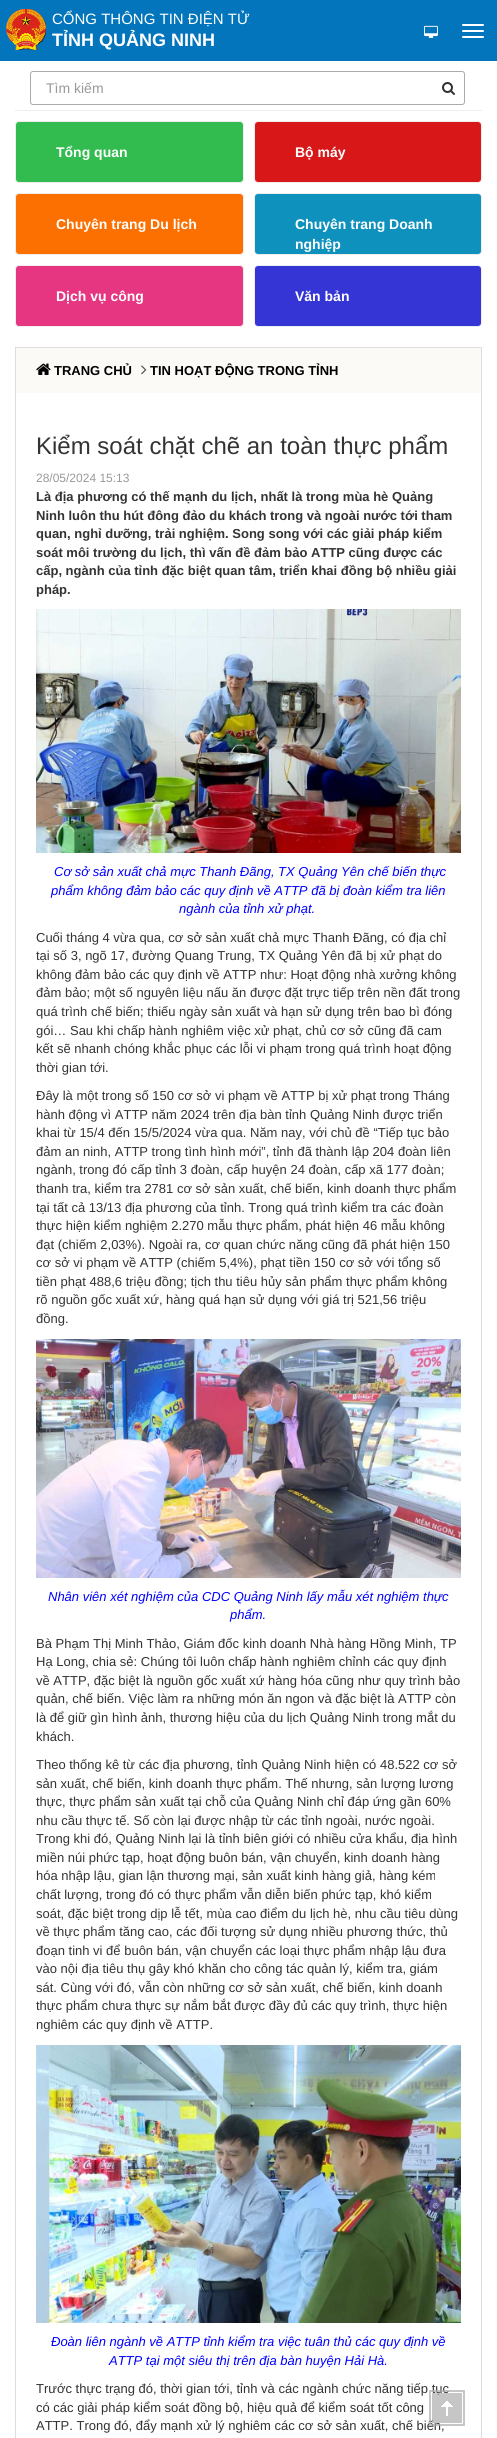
#include <cairo.h>
#include <math.h>
#include <stddef.h>

typedef struct { double x, y; const char *s; } line_t;

static void ink(cairo_t *ctx, unsigned color) {
    cairo_set_source_rgb(ctx, (color >> 16) / 255.0, (color >> 8 & 255) / 255.0, (color & 255) / 255.0);
}

static void round_path(cairo_t *ctx, double x, double y, double w, double h, double r) {
    cairo_new_sub_path(ctx);
    cairo_arc(ctx, x + w - r, y + h - r, r, 0, M_PI / 2);
    cairo_arc(ctx, x + r, y + h - r, r, M_PI / 2, M_PI);
    cairo_arc(ctx, x + r, y + r, r, M_PI, 1.5 * M_PI);
    cairo_arc(ctx, x + w - r, y + r, r, 1.5 * M_PI, 2 * M_PI);
    cairo_close_path(ctx);
}

static void paste(cairo_t *ctx, const char *path, double x, double y, double w, double h) {
    cairo_surface_t *image = cairo_image_surface_create_from_png(path);
    cairo_save(ctx);
    cairo_set_source_surface(ctx, image, x, y);
    cairo_rectangle(ctx, x, y, w, h);
    cairo_fill(ctx);
    cairo_restore(ctx);
    cairo_surface_destroy(image);
}

int main(void) {
    cairo_surface_t *surface = cairo_image_surface_create(CAIRO_FORMAT_RGB24, 497, 2438);
    cairo_t *ctx = cairo_create(surface);
    cairo_font_options_t *options = cairo_font_options_create();
    cairo_font_options_set_hint_metrics(options, CAIRO_HINT_METRICS_OFF);
    cairo_font_options_set_hint_style(options, CAIRO_HINT_STYLE_NONE);
    cairo_set_font_options(ctx, options);
    cairo_set_miter_limit(ctx, 4);
    ink(ctx, 0x0375BC);
    cairo_paint(ctx);
    paste(ctx, "media/1.png", 6, 9, 40, 41);
    cairo_select_font_face(ctx, "Liberation Sans", CAIRO_FONT_SLANT_NORMAL, CAIRO_FONT_WEIGHT_NORMAL);
    cairo_set_font_size(ctx, 15);
    ink(ctx, 0xFFFFFF);
    cairo_move_to(ctx, 52, 24);
    cairo_show_text(ctx, "CỔNG THÔNG TIN ĐIỆN TỬ");
    cairo_select_font_face(ctx, "Liberation Sans", CAIRO_FONT_SLANT_NORMAL, CAIRO_FONT_WEIGHT_BOLD);
    cairo_set_font_size(ctx, 18);
    cairo_move_to(ctx, 52, 46);
    cairo_show_text(ctx, "TỈNH QUẢNG NINH");
    paste(ctx, "media/2.png", 424, 25, 14, 13);
    round_path(ctx, 462, 24, 22, 2, 1);
    cairo_fill(ctx);
    round_path(ctx, 462, 30, 22, 2, 1);
    cairo_fill(ctx);
    round_path(ctx, 462, 36, 22, 2, 1);
    cairo_fill(ctx);
    cairo_rectangle(ctx, 0, 61, 497, 2377);
    cairo_fill(ctx);
    round_path(ctx, 30.5, 71.5, 434, 33, 2.5);
    ink(ctx, 0xABABAB);
    cairo_set_line_width(ctx, 1);
    cairo_stroke(ctx);
    cairo_select_font_face(ctx, "Liberation Sans", CAIRO_FONT_SLANT_NORMAL, CAIRO_FONT_WEIGHT_NORMAL);
    cairo_set_font_size(ctx, 14);
    ink(ctx, 0x999999);
    cairo_move_to(ctx, 46, 93);
    cairo_show_text(ctx, "Tìm kiếm");
    paste(ctx, "media/3.png", 442, 82, 13, 13);
    ink(ctx, 0xEEEEEE);
    cairo_rectangle(ctx, 15, 110, 467, 1);
    cairo_fill(ctx);
    ink(ctx, 0x32BB4F);
    round_path(ctx, 15.5, 121.5, 228, 61, 3.5);
    cairo_fill_preserve(ctx);
    ink(ctx, 0xEEEEEE);
    cairo_stroke(ctx);
    cairo_select_font_face(ctx, "Liberation Sans", CAIRO_FONT_SLANT_NORMAL, CAIRO_FONT_WEIGHT_BOLD);
    ink(ctx, 0xFFFFFF);
    cairo_move_to(ctx, 56, 157);
    cairo_show_text(ctx, "Tổng quan");
    ink(ctx, 0xD81818);
    round_path(ctx, 254.5, 121.5, 227, 61, 3.5);
    cairo_fill_preserve(ctx);
    ink(ctx, 0xEEEEEE);
    cairo_stroke(ctx);
    ink(ctx, 0xFFFFFF);
    cairo_move_to(ctx, 295, 157);
    cairo_show_text(ctx, "Bộ máy");
    ink(ctx, 0xFB7000);
    round_path(ctx, 15.5, 193.5, 228, 61, 3.5);
    cairo_fill_preserve(ctx);
    ink(ctx, 0xEEEEEE);
    cairo_stroke(ctx);
    ink(ctx, 0xFFFFFF);
    cairo_move_to(ctx, 56, 229);
    cairo_show_text(ctx, "Chuyên trang Du lịch");
    ink(ctx, 0x0E91BD);
    round_path(ctx, 254.5, 193.5, 227, 61, 3.5);
    cairo_fill_preserve(ctx);
    ink(ctx, 0xEEEEEE);
    cairo_stroke(ctx);
    ink(ctx, 0xFFFFFF);
    cairo_move_to(ctx, 295, 229);
    cairo_show_text(ctx, "Chuyên trang Doanh");
    cairo_move_to(ctx, 295, 249);
    cairo_show_text(ctx, "nghiệp");
    ink(ctx, 0xE63681);
    round_path(ctx, 15.5, 265.5, 228, 61, 3.5);
    cairo_fill_preserve(ctx);
    ink(ctx, 0xEEEEEE);
    cairo_stroke(ctx);
    ink(ctx, 0xFFFFFF);
    cairo_move_to(ctx, 56, 301);
    cairo_show_text(ctx, "Dịch vụ công");
    ink(ctx, 0x3535D6);
    round_path(ctx, 254.5, 265.5, 227, 61, 3.5);
    cairo_fill_preserve(ctx);
    ink(ctx, 0xEEEEEE);
    cairo_stroke(ctx);
    ink(ctx, 0xFFFFFF);
    cairo_move_to(ctx, 295, 301);
    cairo_show_text(ctx, "Văn bản");
    cairo_rectangle(ctx, 15.5, 347.5, 466, 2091);
    ink(ctx, 0xDDDDDD);
    cairo_stroke(ctx);
    ink(ctx, 0xFCFAF7);
    cairo_rectangle(ctx, 16, 348, 465, 45);
    cairo_fill(ctx);
    paste(ctx, "media/4.png", 36, 363, 15, 12);
    cairo_set_font_size(ctx, 13);
    ink(ctx, 0x000000);
    cairo_move_to(ctx, 54, 375);
    cairo_show_text(ctx, "TRANG CHỦ");
    paste(ctx, "media/5.png", 141, 365, 6, 10);
    cairo_move_to(ctx, 150, 375);
    cairo_show_text(ctx, "TIN HOẠT ĐỘNG TRONG TỈNH");
    cairo_select_font_face(ctx, "Liberation Sans", CAIRO_FONT_SLANT_NORMAL, CAIRO_FONT_WEIGHT_NORMAL);
    cairo_set_font_size(ctx, 24);
    ink(ctx, 0x333333);
    cairo_move_to(ctx, 36, 454);
    cairo_show_text(ctx, "Kiểm soát chặt chẽ an toàn thực phẩm");
    cairo_set_font_size(ctx, 12);
    ink(ctx, 0x999999);
    cairo_move_to(ctx, 36, 482);
    cairo_show_text(ctx, "28/05/2024 15:13");
    cairo_select_font_face(ctx, "Liberation Sans", CAIRO_FONT_SLANT_NORMAL, CAIRO_FONT_WEIGHT_BOLD);
    cairo_set_font_size(ctx, 13);
    ink(ctx, 0x333333);
    {
        static const line_t items[] = {
            {36, 501, "Là địa phương có thế mạnh du lịch, nhất là trong mùa hè Quảng"},
            {36, 520, "Ninh luôn thu hút đông đảo du khách trong và ngoài nước tới tham"},
            {36, 538, "quan, nghỉ dưỡng, trải nghiệm. Song song với các giải pháp kiểm"},
            {36, 557, "soát môi trường du lịch, thì vấn đề đảm bảo ATTP cũng được các"},
            {36, 575, "cấp, ngành của tỉnh đặc biệt quan tâm, triển khai đồng bộ nhiều giải"},
            {36, 594, "pháp."},
        };
        for (size_t i = 0; i < sizeof items / sizeof *items; i++) {
            cairo_move_to(ctx, items[i].x, items[i].y);
            cairo_show_text(ctx, items[i].s);
        }
    }
    paste(ctx, "media/6.png", 36, 609, 425, 244);
    cairo_select_font_face(ctx, "Liberation Sans", CAIRO_FONT_SLANT_ITALIC, CAIRO_FONT_WEIGHT_NORMAL);
    ink(ctx, 0x0000FF);
    {
        static const line_t items[] = {
            {54, 876, "Cơ sở sản xuất chả mực Thanh Đãng, TX Quảng Yên chế biến thực"},
            {51, 895, "phẩm không đảm bảo các quy định về ATTP đã bị đoàn kiểm tra liên"},
            {179, 913, "ngành của tỉnh xử phạt."},
        };
        for (size_t i = 0; i < sizeof items / sizeof *items; i++) {
            cairo_move_to(ctx, items[i].x, items[i].y);
            cairo_show_text(ctx, items[i].s);
        }
    }
    cairo_select_font_face(ctx, "Liberation Sans", CAIRO_FONT_SLANT_NORMAL, CAIRO_FONT_WEIGHT_NORMAL);
    ink(ctx, 0x333333);
    {
        static const line_t items[] = {
            {36, 942, "Cuối tháng 4 vừa qua, cơ sở sản xuất chả mực Thanh Đãng, có địa chỉ"},
            {36, 960, "tại số 3, ngõ 17, đường Quang Trung, TX Quảng Yên đã bị xử phạt do"},
            {36, 979, "không đảm bảo các quy định về ATTP như: Hoạt động nhà xưởng không"},
            {36, 997, "đảm bảo; một số nguyên liệu nấu ăn được đặt trực tiếp trên nền đất trong"},
            {36, 1016, "quá trình chế biến; thiếu ngày sản xuất và hạn sử dụng trên bao bì đóng"},
            {36, 1035, "gói… Sau khi chấp hành nghiêm việc xử phạt, chủ cơ sở cũng đã cam"},
            {36, 1053, "kết sẽ nhanh chóng khắc phục các lỗi vi phạm trong quá trình hoạt động"},
            {36, 1072, "thời gian tới."},
            {36, 1100, "Đây là một trong số 150 cơ sở vi phạm về ATTP bị xử phạt trong Tháng"},
            {36, 1119, "hành động vì ATTP năm 2024 trên địa bàn tỉnh Quảng Ninh được triển"},
            {36, 1137, "khai từ 15/4 đến 15/5/2024 vừa qua. Năm nay, với chủ đề “Tiếp tục bảo"},
            {36, 1156, "đảm an ninh, ATTP trong tình hình mới”, tỉnh đã thành lập 204 đoàn liên"},
            {36, 1174, "ngành, trong đó cấp tỉnh 3 đoàn, cấp huyện 24 đoàn, cấp xã 177 đoàn;"},
            {36, 1193, "thanh tra, kiểm tra 2781 cơ sở sản xuất, chế biến, kinh doanh thực phẩm"},
            {36, 1212, "tại tất cả 13/13 địa phương của tỉnh. Trong quá trình kiểm tra các đoàn"},
            {36, 1230, "thực hiện kiểm nghiệm 2.270 mẫu thực phẩm, phát hiện 46 mẫu không"},
            {36, 1249, "đạt (chiếm 2,03%). Ngoài ra, cơ quan chức năng cũng đã phát hiện 150"},
            {36, 1267, "cơ sở vi phạm về ATTP (chiếm 5,4%), phạt tiền 150 cơ sở với tổng số"},
            {36, 1286, "tiền phạt 488,6 triệu đồng; tịch thu tiêu hủy sản phẩm thực phẩm không"},
            {36, 1304, "rõ nguồn gốc xuất xứ, hàng quá hạn sử dụng với giá trị 521,56 triệu"},
            {36, 1323, "đồng."},
        };
        for (size_t i = 0; i < sizeof items / sizeof *items; i++) {
            cairo_move_to(ctx, items[i].x, items[i].y);
            cairo_show_text(ctx, items[i].s);
        }
    }
    paste(ctx, "media/7.png", 36, 1339, 425, 239);
    cairo_select_font_face(ctx, "Liberation Sans", CAIRO_FONT_SLANT_ITALIC, CAIRO_FONT_WEIGHT_NORMAL);
    ink(ctx, 0x0000FF);
    cairo_move_to(ctx, 48, 1601);
    cairo_show_text(ctx, "Nhân viên xét nghiệm của CDC Quảng Ninh lấy mẫu xét nghiệm thực");
    cairo_move_to(ctx, 230, 1619);
    cairo_show_text(ctx, "phẩm.");
    cairo_select_font_face(ctx, "Liberation Sans", CAIRO_FONT_SLANT_NORMAL, CAIRO_FONT_WEIGHT_NORMAL);
    ink(ctx, 0x333333);
    {
        static const line_t items[] = {
            {36, 1648, "Bà Phạm Thị Minh Thảo, Giám đốc kinh doanh Nhà hàng Hồng Minh, TP"},
            {36, 1666, "Hạ Long, chia sẻ: Chúng tôi luôn chấp hành nghiêm chỉnh các quy định"},
            {36, 1685, "về ATTP, đặc biệt là nguồn gốc xuất xứ hàng hóa cũng như quy trình bảo"},
            {36, 1703, "quản, chế biến. Việc làm ra những món ăn ngon và đặc biệt là ATTP còn"},
            {36, 1722, "là để giữ gìn hình ảnh, thương hiệu của du lịch Quảng Ninh trong mắt du"},
            {36, 1741, "khách."},
            {36, 1769, "Theo thống kê từ các địa phương, tỉnh Quảng Ninh hiện có 48.522 cơ sở"},
            {36, 1788, "sản xuất, chế biến, kinh doanh thực phẩm. Thế nhưng, sản lượng lương"},
            {36, 1806, "thực, thực phẩm sản xuất tại chỗ của Quảng Ninh chỉ đáp ứng gần 60%"},
            {36, 1825, "nhu cầu thực tế. Số còn lại được nhập từ các tỉnh ngoài, nước ngoài."},
            {36, 1843, "Trong khi đó, Quảng Ninh lại là tỉnh biên giới có nhiều cửa khẩu, địa hình"},
            {36, 1862, "miền núi phức tạp, hoạt động buôn bán, vận chuyển, kinh doanh hàng"},
            {36, 1880, "hóa nhập lậu, gian lận thương mại, sản xuất kinh hàng giả, hàng kém"},
            {36, 1899, "chất lượng, trong đó có thực phẩm vẫn diễn biến phức tạp, khó kiểm"},
            {36, 1918, "soát, đặc biệt trong dịp lễ tết, mùa cao điểm du lịch hè, nhu cầu tiêu dùng"},
            {36, 1936, "về thực phẩm tăng cao, các đối tượng sử dụng nhiều phương thức, thủ"},
            {36, 1955, "đoạn tinh vi để buôn bán, vận chuyển các loại thực phẩm nhập lậu đưa"},
            {36, 1973, "vào nội địa tiêu thụ gây khó khăn cho công tác quản lý, kiểm tra, giám"},
            {36, 1992, "sát. Cùng với đó, vẫn còn những cơ sở sản xuất, chế biến, kinh doanh"},
            {36, 2010, "thực phẩm chưa thực sự nắm bắt được đầy đủ các quy trình, thực hiện"},
            {36, 2029, "nghiêm các quy định về ATTP."},
        };
        for (size_t i = 0; i < sizeof items / sizeof *items; i++) {
            cairo_move_to(ctx, items[i].x, items[i].y);
            cairo_show_text(ctx, items[i].s);
        }
    }
    paste(ctx, "media/8.png", 36, 2045, 425, 278);
    cairo_select_font_face(ctx, "Liberation Sans", CAIRO_FONT_SLANT_ITALIC, CAIRO_FONT_WEIGHT_NORMAL);
    ink(ctx, 0x0000FF);
    cairo_move_to(ctx, 51, 2346);
    cairo_show_text(ctx, "Đoàn liên ngành về ATTP tỉnh kiểm tra việc tuân thủ các quy định về");
    cairo_move_to(ctx, 109, 2365);
    cairo_show_text(ctx, "ATTP tại một siêu thị trên địa bàn huyện Hải Hà.");
    cairo_select_font_face(ctx, "Liberation Sans", CAIRO_FONT_SLANT_NORMAL, CAIRO_FONT_WEIGHT_NORMAL);
    ink(ctx, 0x333333);
    {
        static const line_t items[] = {
            {36, 2393, "Trước thực trạng đó, thời gian tới, tỉnh và các ngành chức năng tiếp tục"},
            {36, 2412, "có các giải pháp kiểm soát đồng bộ, hiệu quả để kiểm soát tốt công"},
            {36, 2430, "ATTP. Trong đó, đẩy mạnh xử lý nghiêm các cơ sở sản xuất, chế biến,"},
        };
        for (size_t i = 0; i < sizeof items / sizeof *items; i++) {
            cairo_move_to(ctx, items[i].x, items[i].y);
            cairo_show_text(ctx, items[i].s);
        }
    }
    paste(ctx, "media/9.png", 429, 2390, 36, 36);
    cairo_surface_write_to_png(surface, "image.png");
    cairo_font_options_destroy(options);
    cairo_destroy(ctx);
    cairo_surface_destroy(surface);
    return 0;
}
